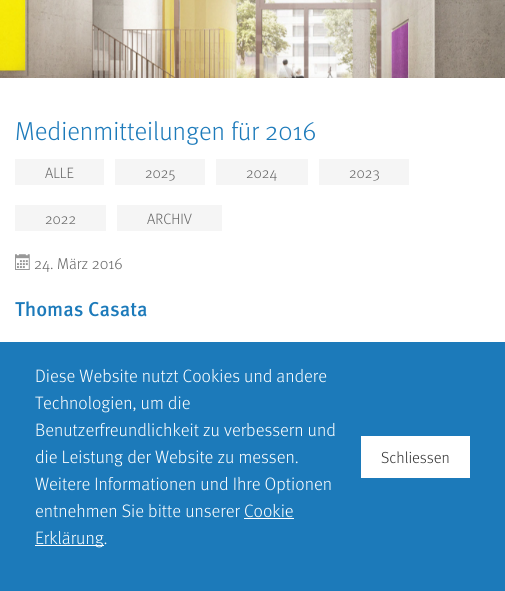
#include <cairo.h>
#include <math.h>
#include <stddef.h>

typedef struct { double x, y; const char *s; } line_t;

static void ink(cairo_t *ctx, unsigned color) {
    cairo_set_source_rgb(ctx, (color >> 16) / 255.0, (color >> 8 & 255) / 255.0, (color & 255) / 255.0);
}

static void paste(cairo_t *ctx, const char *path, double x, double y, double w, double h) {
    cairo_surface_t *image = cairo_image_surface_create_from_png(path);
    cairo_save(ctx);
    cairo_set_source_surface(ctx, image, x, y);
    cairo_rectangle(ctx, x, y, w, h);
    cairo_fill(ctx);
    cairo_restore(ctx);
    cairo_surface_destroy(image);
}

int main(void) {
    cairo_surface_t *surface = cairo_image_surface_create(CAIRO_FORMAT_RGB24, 505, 591);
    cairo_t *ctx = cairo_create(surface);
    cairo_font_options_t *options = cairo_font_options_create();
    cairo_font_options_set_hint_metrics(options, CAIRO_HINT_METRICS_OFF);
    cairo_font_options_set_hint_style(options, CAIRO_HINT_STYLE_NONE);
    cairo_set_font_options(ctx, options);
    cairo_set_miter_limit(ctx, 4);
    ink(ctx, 0xFFFFFF);
    cairo_paint(ctx);
    paste(ctx, "media/1.png", 0, 0, 505, 78);
    cairo_select_font_face(ctx, "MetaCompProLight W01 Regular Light", CAIRO_FONT_SLANT_NORMAL, CAIRO_FONT_WEIGHT_NORMAL);
    cairo_set_font_size(ctx, 26);
    ink(ctx, 0x1C7ABA);
    cairo_move_to(ctx, 15, 140);
    cairo_show_text(ctx, "Medienmitteilungen für 2016");
    ink(ctx, 0xF5F5F5);
    cairo_rectangle(ctx, 15, 159, 89, 26);
    cairo_fill(ctx);
    cairo_set_font_size(ctx, 15);
    ink(ctx, 0x656565);
    cairo_move_to(ctx, 45, 178);
    cairo_show_text(ctx, "ALLE");
    ink(ctx, 0xF5F5F5);
    cairo_rectangle(ctx, 115, 159, 90, 26);
    cairo_fill(ctx);
    ink(ctx, 0x656565);
    cairo_move_to(ctx, 145, 178);
    cairo_show_text(ctx, "2025");
    ink(ctx, 0xF5F5F5);
    cairo_rectangle(ctx, 216, 159, 92, 26);
    cairo_fill(ctx);
    ink(ctx, 0x656565);
    cairo_move_to(ctx, 246, 178);
    cairo_show_text(ctx, "2024");
    ink(ctx, 0xF5F5F5);
    cairo_rectangle(ctx, 319, 159, 90, 26);
    cairo_fill(ctx);
    ink(ctx, 0x656565);
    cairo_move_to(ctx, 349, 178);
    cairo_show_text(ctx, "2023");
    ink(ctx, 0xF5F5F5);
    cairo_rectangle(ctx, 15, 205, 91, 26);
    cairo_fill(ctx);
    ink(ctx, 0x656565);
    cairo_move_to(ctx, 45, 224);
    cairo_show_text(ctx, "2022");
    ink(ctx, 0xF5F5F5);
    cairo_rectangle(ctx, 117, 205, 105, 26);
    cairo_fill(ctx);
    ink(ctx, 0x656565);
    cairo_move_to(ctx, 147, 224);
    cairo_show_text(ctx, "ARCHIV");
    paste(ctx, "media/2.png", 15, 254, 15, 16);
    cairo_set_font_size(ctx, 15.75);
    cairo_move_to(ctx, 34, 269);
    cairo_show_text(ctx, "24. März 2016");
    cairo_select_font_face(ctx, "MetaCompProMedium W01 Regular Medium", CAIRO_FONT_SLANT_NORMAL, CAIRO_FONT_WEIGHT_NORMAL);
    cairo_set_font_size(ctx, 20);
    ink(ctx, 0x1C7ABA);
    cairo_move_to(ctx, 15, 316);
    cairo_show_text(ctx, "Thomas Casata");
    cairo_rectangle(ctx, 0, 342, 505, 249);
    cairo_fill(ctx);
    cairo_select_font_face(ctx, "MetaCompProLight W01 Regular Light", CAIRO_FONT_SLANT_NORMAL, CAIRO_FONT_WEIGHT_NORMAL);
    cairo_set_font_size(ctx, 18);
    ink(ctx, 0xFFFFFF);
    {
        static const line_t items[] = {
            {35, 382, "Diese Website nutzt Cookies und andere"},
            {35, 409, "Technologien, um die"},
            {35, 436, "Benutzerfreundlichkeit zu verbessern und"},
            {35, 463, "die Leistung der Website zu messen."},
            {35, 490, "Weitere Informationen und Ihre Optionen"},
            {35, 517, "entnehmen Sie bitte unserer Cookie"},
        };
        for (size_t i = 0; i < sizeof items / sizeof *items; i++) {
            cairo_move_to(ctx, items[i].x, items[i].y);
            cairo_show_text(ctx, items[i].s);
        }
    }
    cairo_rectangle(ctx, 35, 545, 69, 1);
    cairo_fill(ctx);
    cairo_move_to(ctx, 35, 544);
    cairo_show_text(ctx, "Erklärung.");
    cairo_rectangle(ctx, 244, 518, 50, 1);
    cairo_fill(ctx);
    cairo_rectangle(ctx, 361, 436, 109, 42);
    cairo_fill(ctx);
    cairo_set_font_size(ctx, 16);
    ink(ctx, 0x333333);
    cairo_move_to(ctx, 381, 463);
    cairo_show_text(ctx, "Schliessen");
    cairo_surface_write_to_png(surface, "image.png");
    cairo_font_options_destroy(options);
    cairo_destroy(ctx);
    cairo_surface_destroy(surface);
    return 0;
}
